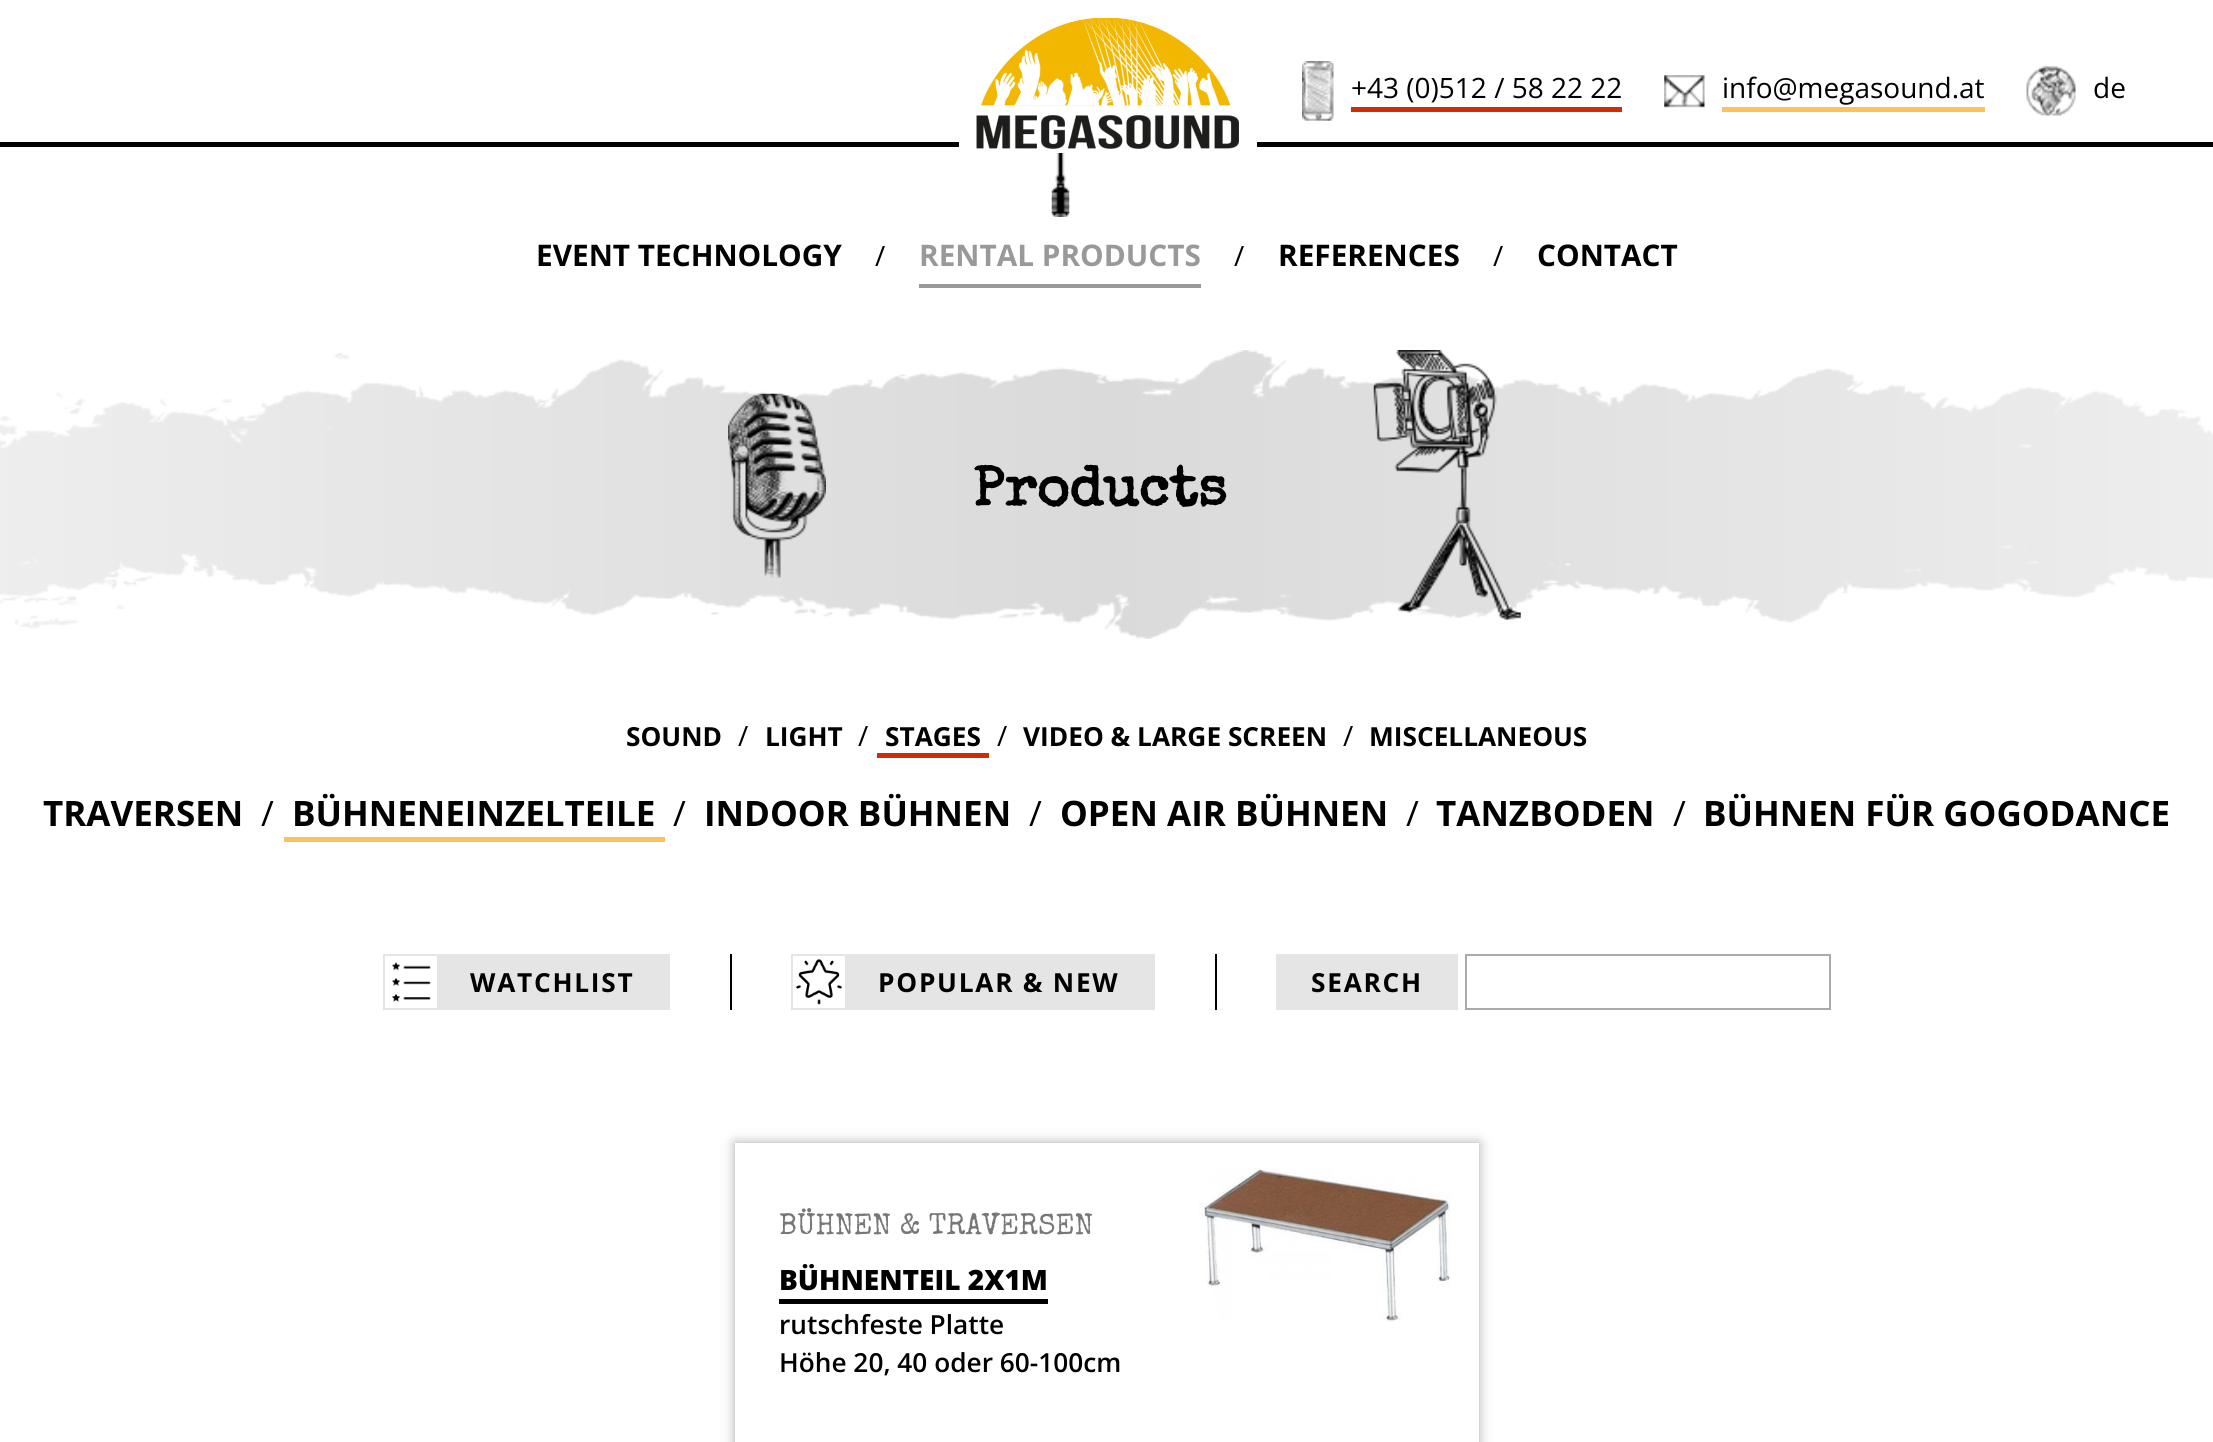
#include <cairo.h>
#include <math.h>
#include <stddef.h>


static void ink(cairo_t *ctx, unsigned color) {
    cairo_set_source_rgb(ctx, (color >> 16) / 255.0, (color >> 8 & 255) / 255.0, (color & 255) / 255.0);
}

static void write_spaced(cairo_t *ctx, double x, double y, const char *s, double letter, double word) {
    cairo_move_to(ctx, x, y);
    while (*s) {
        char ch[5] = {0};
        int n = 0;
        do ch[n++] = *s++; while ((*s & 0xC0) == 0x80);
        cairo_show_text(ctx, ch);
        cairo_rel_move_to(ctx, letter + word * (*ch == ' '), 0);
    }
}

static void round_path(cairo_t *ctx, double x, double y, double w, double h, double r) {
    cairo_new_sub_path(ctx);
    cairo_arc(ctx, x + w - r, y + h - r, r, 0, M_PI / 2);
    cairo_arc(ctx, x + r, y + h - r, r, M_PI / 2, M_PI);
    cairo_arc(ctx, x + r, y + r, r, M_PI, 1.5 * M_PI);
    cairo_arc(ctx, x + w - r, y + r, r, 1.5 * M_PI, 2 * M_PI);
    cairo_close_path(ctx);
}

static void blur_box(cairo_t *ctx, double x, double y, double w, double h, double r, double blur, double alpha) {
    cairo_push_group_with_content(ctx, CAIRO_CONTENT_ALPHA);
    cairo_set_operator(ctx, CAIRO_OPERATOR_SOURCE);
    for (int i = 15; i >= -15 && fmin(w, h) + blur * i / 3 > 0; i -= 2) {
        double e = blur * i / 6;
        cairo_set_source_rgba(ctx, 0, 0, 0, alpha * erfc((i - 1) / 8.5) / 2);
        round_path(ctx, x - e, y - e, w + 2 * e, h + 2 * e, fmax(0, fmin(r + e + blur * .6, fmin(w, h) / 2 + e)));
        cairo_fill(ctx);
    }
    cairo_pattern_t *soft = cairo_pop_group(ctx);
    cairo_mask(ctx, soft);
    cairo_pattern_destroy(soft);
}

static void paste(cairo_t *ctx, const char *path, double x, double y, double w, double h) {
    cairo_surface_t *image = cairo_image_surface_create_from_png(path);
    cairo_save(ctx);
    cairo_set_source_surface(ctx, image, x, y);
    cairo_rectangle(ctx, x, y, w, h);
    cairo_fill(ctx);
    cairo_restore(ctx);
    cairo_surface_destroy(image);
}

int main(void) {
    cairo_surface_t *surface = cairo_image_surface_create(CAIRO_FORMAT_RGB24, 2213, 1442);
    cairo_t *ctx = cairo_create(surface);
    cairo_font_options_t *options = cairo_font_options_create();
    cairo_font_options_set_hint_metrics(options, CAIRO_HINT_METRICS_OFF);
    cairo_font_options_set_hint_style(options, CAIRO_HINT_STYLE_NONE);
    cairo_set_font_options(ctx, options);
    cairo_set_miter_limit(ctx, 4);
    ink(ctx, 0xFFFFFF);
    cairo_paint(ctx);
    ink(ctx, 0x000000);
    cairo_rectangle(ctx, 0, 142, 2213, 5);
    cairo_fill(ctx);
    ink(ctx, 0xFFFFFF);
    cairo_rectangle(ctx, 959, 142, 298, 5);
    cairo_fill(ctx);
    paste(ctx, "media/1.png", 976, 18, 263, 131);
    paste(ctx, "media/2.png", 1302, 61, 32, 60);
    cairo_select_font_face(ctx, "Open Sans", CAIRO_FONT_SLANT_NORMAL, CAIRO_FONT_WEIGHT_NORMAL);
    cairo_set_font_size(ctx, 28);
    ink(ctx, 0x000000);
    cairo_move_to(ctx, 1351, 98);
    cairo_show_text(ctx, "+43 (0)512 / 58 22 22");
    ink(ctx, 0xCE2D06);
    cairo_rectangle(ctx, 1351, 107, 271, 5);
    cairo_fill(ctx);
    paste(ctx, "media/3.png", 1664, 75, 41, 33);
    ink(ctx, 0x000000);
    cairo_move_to(ctx, 1722, 98);
    cairo_show_text(ctx, "info@megasound.at");
    ink(ctx, 0xFAC15C);
    cairo_rectangle(ctx, 1722, 107, 263, 5);
    cairo_fill(ctx);
    paste(ctx, "media/4.png", 2026, 66, 50, 51);
    ink(ctx, 0x000000);
    cairo_move_to(ctx, 2093, 98);
    cairo_show_text(ctx, "de");
    cairo_select_font_face(ctx, "Open Sans", CAIRO_FONT_SLANT_NORMAL, CAIRO_FONT_WEIGHT_BOLD);
    cairo_set_font_size(ctx, 29.75);
    cairo_move_to(ctx, 536, 266);
    cairo_show_text(ctx, "EVENT TECHNOLOGY");
    cairo_select_font_face(ctx, "Open Sans", CAIRO_FONT_SLANT_NORMAL, CAIRO_FONT_WEIGHT_NORMAL);
    cairo_set_font_size(ctx, 28);
    cairo_move_to(ctx, 875, 266);
    cairo_show_text(ctx, "/");
    paste(ctx, "media/5.png", 1051, 153, 19, 64);
    ink(ctx, 0x999999);
    cairo_rectangle(ctx, 919, 284, 282, 4);
    cairo_fill(ctx);
    cairo_select_font_face(ctx, "Open Sans", CAIRO_FONT_SLANT_NORMAL, CAIRO_FONT_WEIGHT_BOLD);
    cairo_set_font_size(ctx, 29.75);
    cairo_move_to(ctx, 919, 266);
    cairo_show_text(ctx, "RENTAL PRODUCTS");
    cairo_select_font_face(ctx, "Open Sans", CAIRO_FONT_SLANT_NORMAL, CAIRO_FONT_WEIGHT_NORMAL);
    cairo_set_font_size(ctx, 28);
    ink(ctx, 0x000000);
    cairo_move_to(ctx, 1234, 266);
    cairo_show_text(ctx, "/");
    cairo_select_font_face(ctx, "Open Sans", CAIRO_FONT_SLANT_NORMAL, CAIRO_FONT_WEIGHT_BOLD);
    cairo_set_font_size(ctx, 29.75);
    cairo_move_to(ctx, 1278, 266);
    cairo_show_text(ctx, "REFERENCES");
    cairo_select_font_face(ctx, "Open Sans", CAIRO_FONT_SLANT_NORMAL, CAIRO_FONT_WEIGHT_NORMAL);
    cairo_set_font_size(ctx, 28);
    cairo_move_to(ctx, 1493, 266);
    cairo_show_text(ctx, "/");
    cairo_select_font_face(ctx, "Open Sans", CAIRO_FONT_SLANT_NORMAL, CAIRO_FONT_WEIGHT_BOLD);
    cairo_set_font_size(ctx, 29.75);
    cairo_move_to(ctx, 1537, 266);
    cairo_show_text(ctx, "CONTACT");
    paste(ctx, "media/6.png", 0, 350, 2213, 289);
    paste(ctx, "media/7.png", 728, 393, 98, 185);
    cairo_select_font_face(ctx, "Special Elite", CAIRO_FONT_SLANT_NORMAL, CAIRO_FONT_WEIGHT_BOLD);
    cairo_set_font_size(ctx, 56);
    cairo_move_to(ctx, 973, 505);
    cairo_show_text(ctx, "Products");
    paste(ctx, "media/8.png", 1373, 350, 148, 270);
    cairo_select_font_face(ctx, "Open Sans", CAIRO_FONT_SLANT_NORMAL, CAIRO_FONT_WEIGHT_BOLD);
    cairo_set_font_size(ctx, 26.25);
    cairo_move_to(ctx, 626, 746);
    cairo_show_text(ctx, "SOUND");
    cairo_select_font_face(ctx, "Open Sans", CAIRO_FONT_SLANT_NORMAL, CAIRO_FONT_WEIGHT_NORMAL);
    cairo_set_font_size(ctx, 28);
    cairo_move_to(ctx, 738, 746);
    cairo_show_text(ctx, "/");
    cairo_select_font_face(ctx, "Open Sans", CAIRO_FONT_SLANT_NORMAL, CAIRO_FONT_WEIGHT_BOLD);
    cairo_set_font_size(ctx, 26.25);
    cairo_move_to(ctx, 765, 746);
    cairo_show_text(ctx, "LIGHT");
    cairo_select_font_face(ctx, "Open Sans", CAIRO_FONT_SLANT_NORMAL, CAIRO_FONT_WEIGHT_NORMAL);
    cairo_set_font_size(ctx, 28);
    cairo_move_to(ctx, 858, 746);
    cairo_show_text(ctx, "/");
    cairo_select_font_face(ctx, "Open Sans", CAIRO_FONT_SLANT_NORMAL, CAIRO_FONT_WEIGHT_BOLD);
    cairo_set_font_size(ctx, 26.25);
    cairo_move_to(ctx, 885, 746);
    cairo_show_text(ctx, "STAGES");
    ink(ctx, 0xCE2D06);
    cairo_rectangle(ctx, 877, 753, 112, 5);
    cairo_fill(ctx);
    cairo_select_font_face(ctx, "Open Sans", CAIRO_FONT_SLANT_NORMAL, CAIRO_FONT_WEIGHT_NORMAL);
    cairo_set_font_size(ctx, 28);
    ink(ctx, 0x000000);
    cairo_move_to(ctx, 997, 746);
    cairo_show_text(ctx, "/");
    cairo_select_font_face(ctx, "Open Sans", CAIRO_FONT_SLANT_NORMAL, CAIRO_FONT_WEIGHT_BOLD);
    cairo_set_font_size(ctx, 26.25);
    cairo_move_to(ctx, 1023, 746);
    cairo_show_text(ctx, "VIDEO & LARGE SCREEN");
    cairo_select_font_face(ctx, "Open Sans", CAIRO_FONT_SLANT_NORMAL, CAIRO_FONT_WEIGHT_NORMAL);
    cairo_set_font_size(ctx, 28);
    cairo_move_to(ctx, 1343, 746);
    cairo_show_text(ctx, "/");
    cairo_select_font_face(ctx, "Open Sans", CAIRO_FONT_SLANT_NORMAL, CAIRO_FONT_WEIGHT_BOLD);
    cairo_set_font_size(ctx, 26.25);
    cairo_move_to(ctx, 1369, 746);
    cairo_show_text(ctx, "MISCELLANEOUS");
    cairo_set_font_size(ctx, 35);
    cairo_move_to(ctx, 43, 826);
    cairo_show_text(ctx, "TRAVERSEN");
    cairo_select_font_face(ctx, "Open Sans", CAIRO_FONT_SLANT_NORMAL, CAIRO_FONT_WEIGHT_NORMAL);
    cairo_move_to(ctx, 261, 826);
    cairo_show_text(ctx, "/");
    ink(ctx, 0xFAC15C);
    cairo_rectangle(ctx, 284, 837, 381, 5);
    cairo_fill(ctx);
    cairo_select_font_face(ctx, "Open Sans", CAIRO_FONT_SLANT_NORMAL, CAIRO_FONT_WEIGHT_BOLD);
    ink(ctx, 0x000000);
    cairo_move_to(ctx, 292, 826);
    cairo_show_text(ctx, "BÜHNENEINZELTEILE");
    cairo_select_font_face(ctx, "Open Sans", CAIRO_FONT_SLANT_NORMAL, CAIRO_FONT_WEIGHT_NORMAL);
    cairo_move_to(ctx, 673, 826);
    cairo_show_text(ctx, "/");
    cairo_select_font_face(ctx, "Open Sans", CAIRO_FONT_SLANT_NORMAL, CAIRO_FONT_WEIGHT_BOLD);
    cairo_move_to(ctx, 704, 826);
    cairo_show_text(ctx, "INDOOR BÜHNEN");
    cairo_select_font_face(ctx, "Open Sans", CAIRO_FONT_SLANT_NORMAL, CAIRO_FONT_WEIGHT_NORMAL);
    cairo_move_to(ctx, 1029, 826);
    cairo_show_text(ctx, "/");
    cairo_select_font_face(ctx, "Open Sans", CAIRO_FONT_SLANT_NORMAL, CAIRO_FONT_WEIGHT_BOLD);
    cairo_move_to(ctx, 1060, 826);
    cairo_show_text(ctx, "OPEN AIR BÜHNEN");
    cairo_select_font_face(ctx, "Open Sans", CAIRO_FONT_SLANT_NORMAL, CAIRO_FONT_WEIGHT_NORMAL);
    cairo_move_to(ctx, 1406, 826);
    cairo_show_text(ctx, "/");
    cairo_select_font_face(ctx, "Open Sans", CAIRO_FONT_SLANT_NORMAL, CAIRO_FONT_WEIGHT_BOLD);
    cairo_move_to(ctx, 1436, 826);
    cairo_show_text(ctx, "TANZBODEN");
    cairo_select_font_face(ctx, "Open Sans", CAIRO_FONT_SLANT_NORMAL, CAIRO_FONT_WEIGHT_NORMAL);
    cairo_move_to(ctx, 1673, 826);
    cairo_show_text(ctx, "/");
    cairo_select_font_face(ctx, "Open Sans", CAIRO_FONT_SLANT_NORMAL, CAIRO_FONT_WEIGHT_BOLD);
    cairo_move_to(ctx, 1703, 826);
    cairo_show_text(ctx, "BÜHNEN FÜR GOGODANCE");
    ink(ctx, 0xE5E5E5);
    cairo_rectangle(ctx, 439, 954, 231, 56);
    cairo_fill(ctx);
    cairo_rectangle(ctx, 384, 955, 54, 54);
    cairo_stroke(ctx);
    paste(ctx, "media/9.png", 391, 962, 40, 40);
    cairo_set_font_size(ctx, 26.25);
    ink(ctx, 0x000000);
    write_spaced(ctx, 470, 992, "WATCHLIST", 1.75, 0);
    cairo_rectangle(ctx, 730, 954, 2, 56);
    cairo_fill(ctx);
    ink(ctx, 0xE5E5E5);
    cairo_rectangle(ctx, 847, 954, 308, 56);
    cairo_fill(ctx);
    cairo_rectangle(ctx, 792, 955, 54, 54);
    cairo_stroke(ctx);
    paste(ctx, "media/10.png", 796, 959, 46, 46);
    ink(ctx, 0x000000);
    write_spaced(ctx, 878, 992, "POPULAR & NEW", 1.75, 0);
    cairo_rectangle(ctx, 1215, 954, 2, 56);
    cairo_fill(ctx);
    ink(ctx, 0xE5E5E5);
    cairo_rectangle(ctx, 1276, 954, 182, 56);
    cairo_fill(ctx);
    ink(ctx, 0x000000);
    write_spaced(ctx, 1311, 992, "SEARCH", 1.75, 0);
    cairo_rectangle(ctx, 1466, 955, 364, 54);
    ink(ctx, 0xAAAAAA);
    cairo_stroke(ctx);
    cairo_save(ctx);
    cairo_set_fill_rule(ctx, CAIRO_FILL_RULE_EVEN_ODD);
    cairo_new_path(ctx);
    cairo_move_to(ctx, 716, 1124);
    cairo_line_to(ctx, 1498, 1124);
    cairo_line_to(ctx, 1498, 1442);
    cairo_line_to(ctx, 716, 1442);
    cairo_close_path(ctx);
    cairo_move_to(ctx, 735, 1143);
    cairo_line_to(ctx, 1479, 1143);
    cairo_line_to(ctx, 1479, 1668);
    cairo_line_to(ctx, 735, 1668);
    cairo_close_path(ctx);
    cairo_clip(ctx);
    ink(ctx, 0xAAAAAA);
    blur_box(ctx, 735, 1143, 744, 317, 0, 6, 1);
    cairo_restore(ctx);
    cairo_select_font_face(ctx, "Special Elite", CAIRO_FONT_SLANT_NORMAL, CAIRO_FONT_WEIGHT_NORMAL);
    cairo_set_font_size(ctx, 29.75);
    ink(ctx, 0x777777);
    cairo_move_to(ctx, 779, 1234);
    cairo_show_text(ctx, "BÜHNEN & TRAVERSEN");
    ink(ctx, 0x000000);
    cairo_rectangle(ctx, 779, 1299, 269, 5);
    cairo_fill(ctx);
    cairo_select_font_face(ctx, "Open Sans ExtraBold", CAIRO_FONT_SLANT_NORMAL, CAIRO_FONT_WEIGHT_NORMAL);
    cairo_set_font_size(ctx, 28);
    cairo_move_to(ctx, 779, 1290);
    cairo_show_text(ctx, "BÜHNENTEIL 2X1M");
    cairo_select_font_face(ctx, "Open Sans SemiBold", CAIRO_FONT_SLANT_NORMAL, CAIRO_FONT_WEIGHT_NORMAL);
    cairo_set_font_size(ctx, 26.25);
    cairo_move_to(ctx, 779, 1334);
    cairo_show_text(ctx, "rutschfeste Platte");
    cairo_move_to(ctx, 779, 1372);
    cairo_show_text(ctx, "Höhe 20, 40 oder 60-100cm");
    paste(ctx, "media/11.png", 1199, 1168, 252, 154);
    cairo_surface_write_to_png(surface, "image.png");
    cairo_font_options_destroy(options);
    cairo_destroy(ctx);
    cairo_surface_destroy(surface);
    return 0;
}
